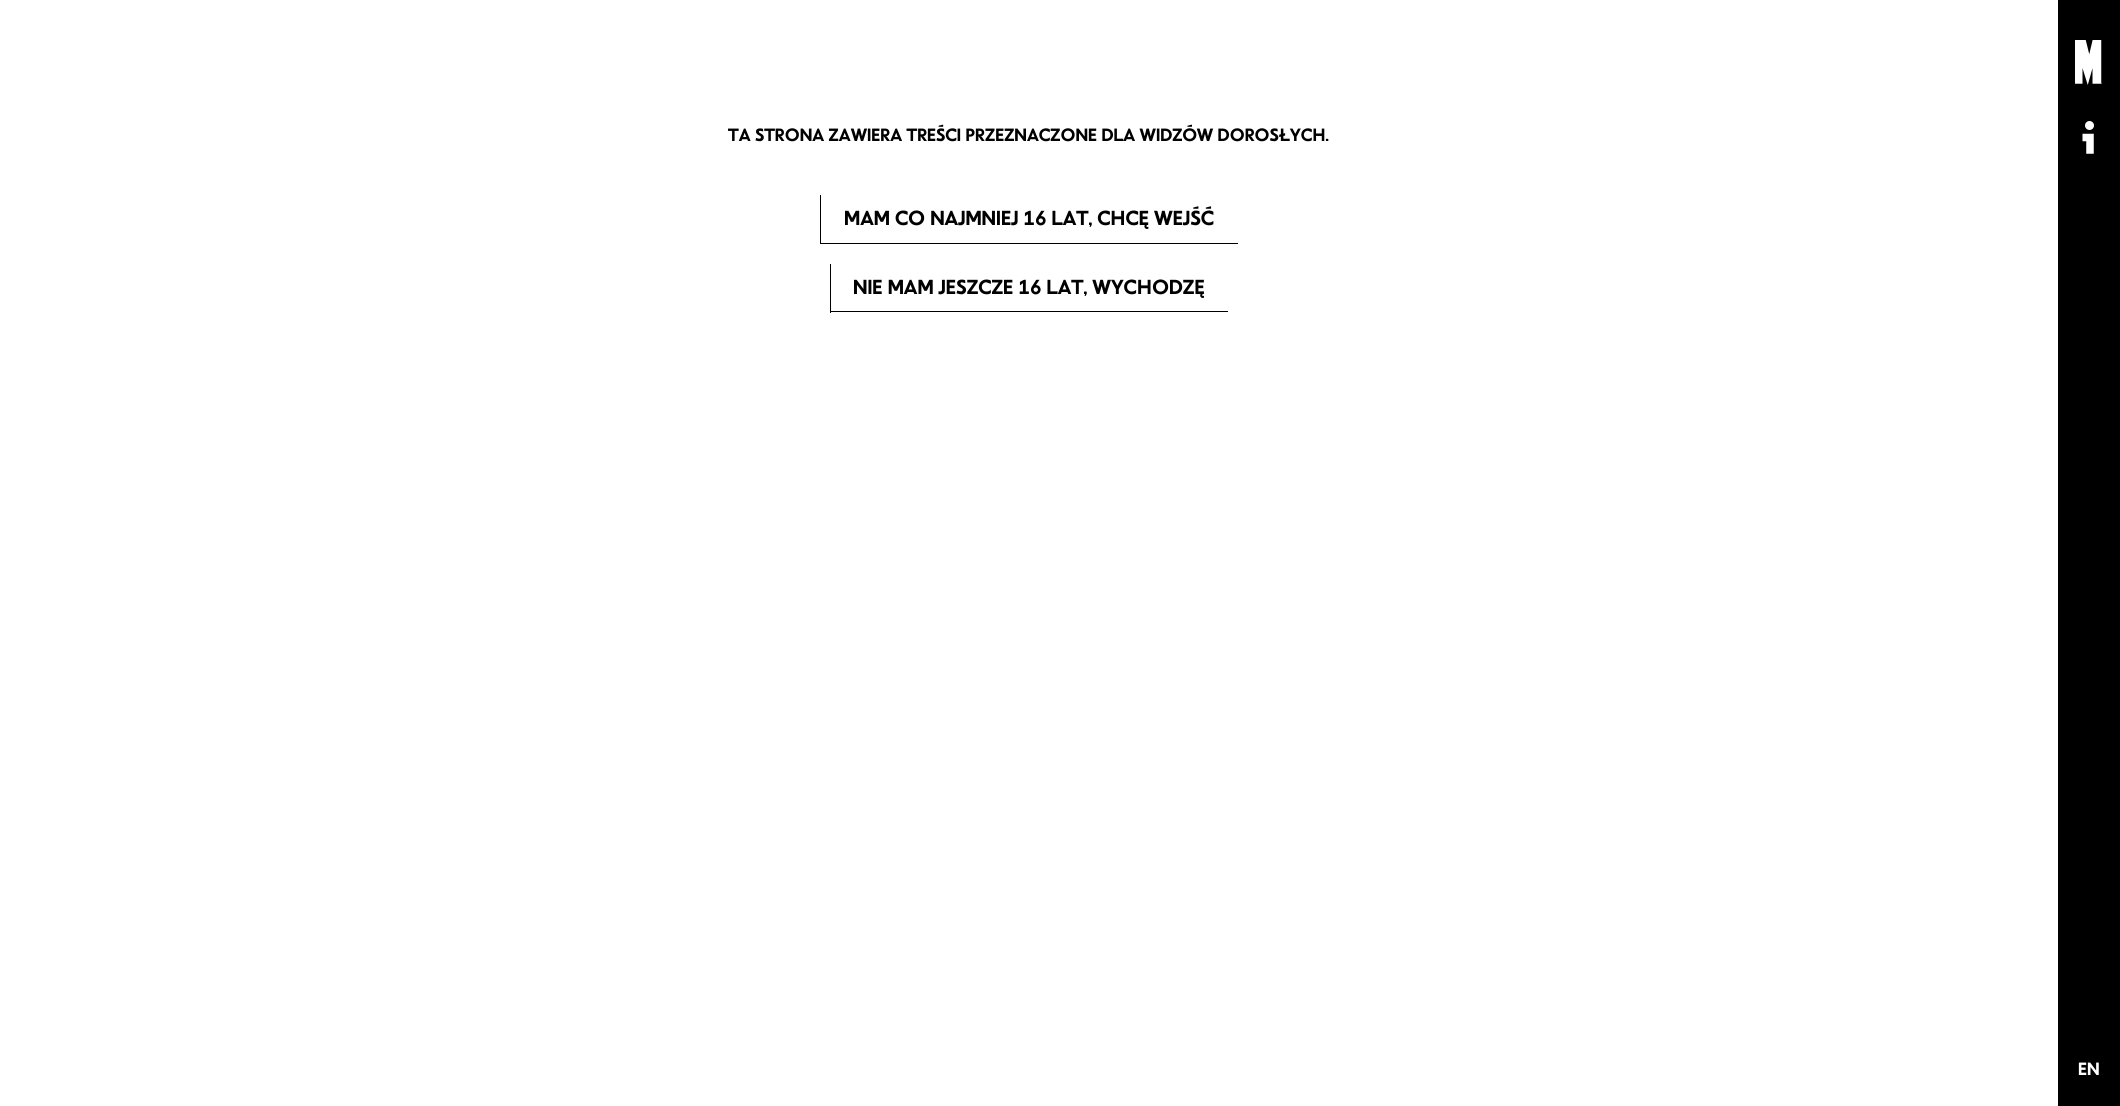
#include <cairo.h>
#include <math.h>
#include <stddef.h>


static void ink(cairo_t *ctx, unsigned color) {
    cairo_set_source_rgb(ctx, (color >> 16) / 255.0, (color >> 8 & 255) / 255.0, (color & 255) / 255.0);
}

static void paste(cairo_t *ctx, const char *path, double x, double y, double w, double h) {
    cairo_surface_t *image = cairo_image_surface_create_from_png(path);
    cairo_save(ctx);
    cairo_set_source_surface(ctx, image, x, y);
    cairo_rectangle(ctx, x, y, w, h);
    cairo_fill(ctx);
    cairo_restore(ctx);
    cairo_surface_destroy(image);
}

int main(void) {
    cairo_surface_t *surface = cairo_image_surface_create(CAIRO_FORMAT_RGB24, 2120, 1106);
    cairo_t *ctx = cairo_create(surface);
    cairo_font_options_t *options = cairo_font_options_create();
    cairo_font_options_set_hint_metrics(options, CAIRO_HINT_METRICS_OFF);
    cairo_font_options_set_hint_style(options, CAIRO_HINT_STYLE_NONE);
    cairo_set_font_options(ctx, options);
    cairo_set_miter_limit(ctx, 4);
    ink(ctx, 0x000000);
    cairo_paint(ctx);
    ink(ctx, 0xFFFFFF);
    cairo_rectangle(ctx, 0, 0, 2058, 1106);
    cairo_fill(ctx);
    cairo_select_font_face(ctx, "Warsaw", CAIRO_FONT_SLANT_NORMAL, CAIRO_FONT_WEIGHT_BOLD);
    cairo_set_font_size(ctx, 17.5);
    ink(ctx, 0x000000);
    cairo_move_to(ctx, 728, 141);
    cairo_show_text(ctx, "TA STRONA ZAWIERA TREŚCI PRZEZNACZONE DLA WIDZÓW DOROSŁYCH.");
    cairo_rectangle(ctx, 820, 243, 418, 1);
    cairo_fill(ctx);
    cairo_rectangle(ctx, 820, 195, 1, 49);
    cairo_fill(ctx);
    cairo_set_font_size(ctx, 20);
    cairo_move_to(ctx, 844, 225);
    cairo_show_text(ctx, "MAM CO NAJMNIEJ 16 LAT, CHCĘ WEJŚĆ");
    cairo_rectangle(ctx, 830, 311, 398, 1);
    cairo_fill(ctx);
    cairo_rectangle(ctx, 830, 264, 1, 49);
    cairo_fill(ctx);
    cairo_move_to(ctx, 853, 294);
    cairo_show_text(ctx, "NIE MAM JESZCZE 16 LAT, WYCHODZĘ");
    paste(ctx, "media/1.png", 2075, 40, 28, 45);
    paste(ctx, "media/2.png", 2082, 121, 12, 33);
    cairo_set_font_size(ctx, 17.5);
    ink(ctx, 0xFFFFFF);
    cairo_move_to(ctx, 2078, 1075);
    cairo_show_text(ctx, "EN");
    cairo_surface_write_to_png(surface, "image.png");
    cairo_font_options_destroy(options);
    cairo_destroy(ctx);
    cairo_surface_destroy(surface);
    return 0;
}
